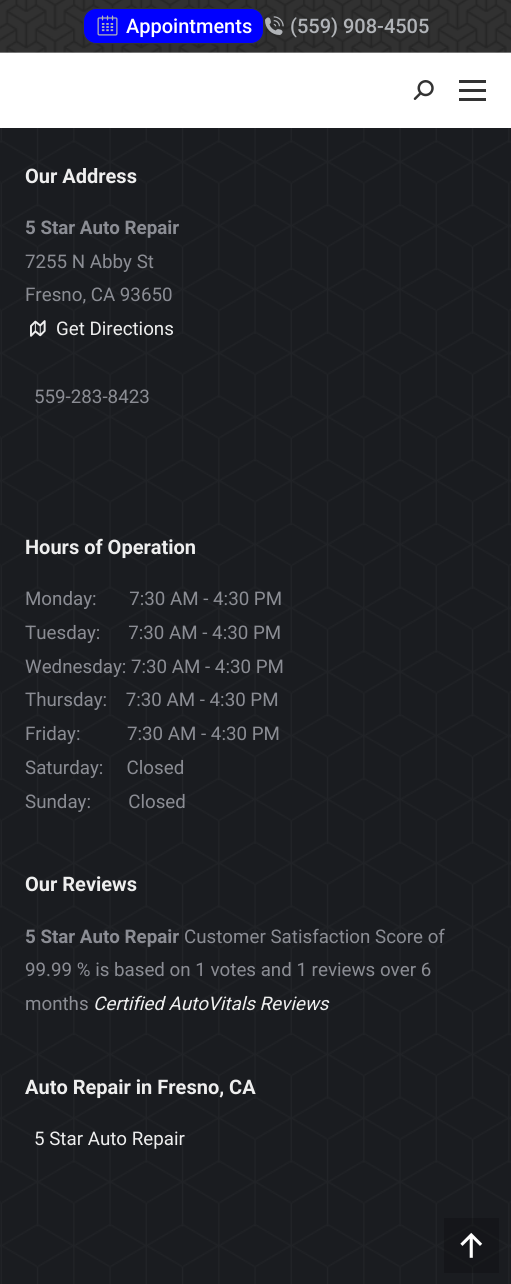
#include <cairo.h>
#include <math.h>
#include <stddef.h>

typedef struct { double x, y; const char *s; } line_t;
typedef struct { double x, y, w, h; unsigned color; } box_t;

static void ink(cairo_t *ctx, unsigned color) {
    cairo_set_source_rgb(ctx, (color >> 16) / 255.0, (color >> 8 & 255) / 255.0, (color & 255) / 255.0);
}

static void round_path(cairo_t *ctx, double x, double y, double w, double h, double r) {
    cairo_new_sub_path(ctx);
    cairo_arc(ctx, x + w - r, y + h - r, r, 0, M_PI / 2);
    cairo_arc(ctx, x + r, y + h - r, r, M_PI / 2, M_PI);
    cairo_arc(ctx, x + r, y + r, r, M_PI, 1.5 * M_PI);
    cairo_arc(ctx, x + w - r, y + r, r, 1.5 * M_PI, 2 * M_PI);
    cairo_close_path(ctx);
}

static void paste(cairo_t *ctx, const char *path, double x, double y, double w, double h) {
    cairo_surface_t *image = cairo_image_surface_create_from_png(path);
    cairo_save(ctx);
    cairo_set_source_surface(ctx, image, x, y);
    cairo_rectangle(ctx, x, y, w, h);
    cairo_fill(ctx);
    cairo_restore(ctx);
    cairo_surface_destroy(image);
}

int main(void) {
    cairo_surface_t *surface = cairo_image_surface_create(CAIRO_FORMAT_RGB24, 511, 1284);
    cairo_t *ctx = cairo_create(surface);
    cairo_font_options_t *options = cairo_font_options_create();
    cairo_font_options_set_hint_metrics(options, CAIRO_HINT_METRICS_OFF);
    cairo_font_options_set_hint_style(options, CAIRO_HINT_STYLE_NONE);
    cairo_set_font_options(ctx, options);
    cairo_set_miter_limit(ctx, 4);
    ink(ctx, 0x1A1C20);
    cairo_paint(ctx);
    ink(ctx, 0xFFFFFF);
    cairo_rectangle(ctx, 0, 53, 511, 75);
    cairo_fill(ctx);
    ink(ctx, 0xC1C1C1);
    cairo_rectangle(ctx, 0, 52, 511, 1);
    cairo_fill(ctx);
    paste(ctx, "media/1.png", 0, 0, 511, 53);
    ink(ctx, 0x0000FF);
    round_path(ctx, 83.5, 8.5, 180, 35, 12.5);
    cairo_fill_preserve(ctx);
    ink(ctx, 0x333333);
    cairo_set_line_width(ctx, 1);
    cairo_stroke(ctx);
    paste(ctx, "media/2.png", 97, 15, 21, 21);
    cairo_select_font_face(ctx, "Roboto Medium", CAIRO_FONT_SLANT_NORMAL, CAIRO_FONT_WEIGHT_NORMAL);
    cairo_set_font_size(ctx, 20);
    ink(ctx, 0xFFFFFF);
    cairo_move_to(ctx, 126, 33);
    cairo_show_text(ctx, "Appointments");
    paste(ctx, "media/3.png", 265, 16, 19, 19);
    ink(ctx, 0xB1B4B8);
    cairo_move_to(ctx, 290, 33);
    cairo_show_text(ctx, "(559) 908-4505");
    paste(ctx, "media/4.png", 413, 80, 21, 20);
    {
        static const box_t items[] = {
            {459, 89, 27, 3, 0x333333},
            {459, 80, 27, 3, 0x333333},
            {459, 98, 27, 3, 0x333333},
        };
        for (size_t i = 0; i < sizeof items / sizeof *items; i++) {
            ink(ctx, items[i].color);
            cairo_rectangle(ctx, items[i].x, items[i].y, items[i].w, items[i].h);
            cairo_fill(ctx);
        }
    }
    paste(ctx, "media/5.png", 0, 128, 511, 1156);
    cairo_select_font_face(ctx, "Roboto", CAIRO_FONT_SLANT_NORMAL, CAIRO_FONT_WEIGHT_BOLD);
    ink(ctx, 0xEEEEEE);
    cairo_move_to(ctx, 25, 183);
    cairo_show_text(ctx, "Our Address");
    cairo_set_font_size(ctx, 18.75);
    ink(ctx, 0x8B8D94);
    cairo_move_to(ctx, 25, 234);
    cairo_show_text(ctx, "5 Star Auto Repair");
    cairo_select_font_face(ctx, "Roboto", CAIRO_FONT_SLANT_NORMAL, CAIRO_FONT_WEIGHT_NORMAL);
    cairo_move_to(ctx, 25, 268);
    cairo_show_text(ctx, "7255 N Abby St");
    cairo_move_to(ctx, 25, 301);
    cairo_show_text(ctx, "Fresno, CA 93650");
    paste(ctx, "media/6.png", 30, 320, 16, 17);
    ink(ctx, 0xEEEEEE);
    cairo_move_to(ctx, 56, 335);
    cairo_show_text(ctx, "Get Directions");
    ink(ctx, 0x8B8D94);
    cairo_move_to(ctx, 34, 403);
    cairo_show_text(ctx, "559-283-8423");
    cairo_select_font_face(ctx, "Roboto", CAIRO_FONT_SLANT_NORMAL, CAIRO_FONT_WEIGHT_BOLD);
    cairo_set_font_size(ctx, 20);
    ink(ctx, 0xEEEEEE);
    cairo_move_to(ctx, 25, 554);
    cairo_show_text(ctx, "Hours of Operation");
    cairo_select_font_face(ctx, "Roboto", CAIRO_FONT_SLANT_NORMAL, CAIRO_FONT_WEIGHT_NORMAL);
    cairo_set_font_size(ctx, 18.75);
    ink(ctx, 0x8B8D94);
    {
        static const line_t items[] = {
            {25, 605, "Monday:       7:30 AM - 4:30 PM"},
            {25, 639, "Tuesday:      7:30 AM - 4:30 PM"},
            {25, 673, "Wednesday: 7:30 AM - 4:30 PM"},
            {25, 706, "Thursday:    7:30 AM - 4:30 PM"},
            {25, 740, "Friday:          7:30 AM - 4:30 PM"},
            {25, 774, "Saturday:     Closed"},
            {25, 808, "Sunday:        Closed"},
        };
        for (size_t i = 0; i < sizeof items / sizeof *items; i++) {
            cairo_move_to(ctx, items[i].x, items[i].y);
            cairo_show_text(ctx, items[i].s);
        }
    }
    cairo_select_font_face(ctx, "Roboto", CAIRO_FONT_SLANT_NORMAL, CAIRO_FONT_WEIGHT_BOLD);
    cairo_set_font_size(ctx, 20);
    ink(ctx, 0xEEEEEE);
    cairo_move_to(ctx, 25, 891);
    cairo_show_text(ctx, "Our Reviews");
    cairo_set_font_size(ctx, 18.75);
    ink(ctx, 0x8B8D94);
    cairo_move_to(ctx, 25, 943);
    cairo_show_text(ctx, "5 Star Auto Repair");
    cairo_select_font_face(ctx, "Roboto", CAIRO_FONT_SLANT_NORMAL, CAIRO_FONT_WEIGHT_NORMAL);
    {
        static const line_t items[] = {
            {184, 943, "Customer Satisfaction Score of"},
            {25, 976, "99.99 % is based on 1 votes and 1 reviews over 6"},
            {25, 1010, "months"},
        };
        for (size_t i = 0; i < sizeof items / sizeof *items; i++) {
            cairo_move_to(ctx, items[i].x, items[i].y);
            cairo_show_text(ctx, items[i].s);
        }
    }
    cairo_select_font_face(ctx, "Roboto", CAIRO_FONT_SLANT_ITALIC, CAIRO_FONT_WEIGHT_NORMAL);
    ink(ctx, 0xEEEEEE);
    cairo_move_to(ctx, 93, 1010);
    cairo_show_text(ctx, "Certified AutoVitals Reviews");
    cairo_select_font_face(ctx, "Roboto", CAIRO_FONT_SLANT_NORMAL, CAIRO_FONT_WEIGHT_BOLD);
    cairo_set_font_size(ctx, 20);
    cairo_move_to(ctx, 25, 1094);
    cairo_show_text(ctx, "Auto Repair in Fresno, CA");
    cairo_select_font_face(ctx, "Roboto", CAIRO_FONT_SLANT_NORMAL, CAIRO_FONT_WEIGHT_NORMAL);
    cairo_set_font_size(ctx, 18.75);
    cairo_move_to(ctx, 34, 1145);
    cairo_show_text(ctx, "5 Star Auto Repair");
    cairo_set_source_rgba(ctx, 0, 0, 0, 0.2);
    cairo_rectangle(ctx, 444, 1218, 55, 55);
    cairo_fill(ctx);
    paste(ctx, "media/7.png", 460, 1232, 23, 26);
    cairo_surface_write_to_png(surface, "image.png");
    cairo_font_options_destroy(options);
    cairo_destroy(ctx);
    cairo_surface_destroy(surface);
    return 0;
}
